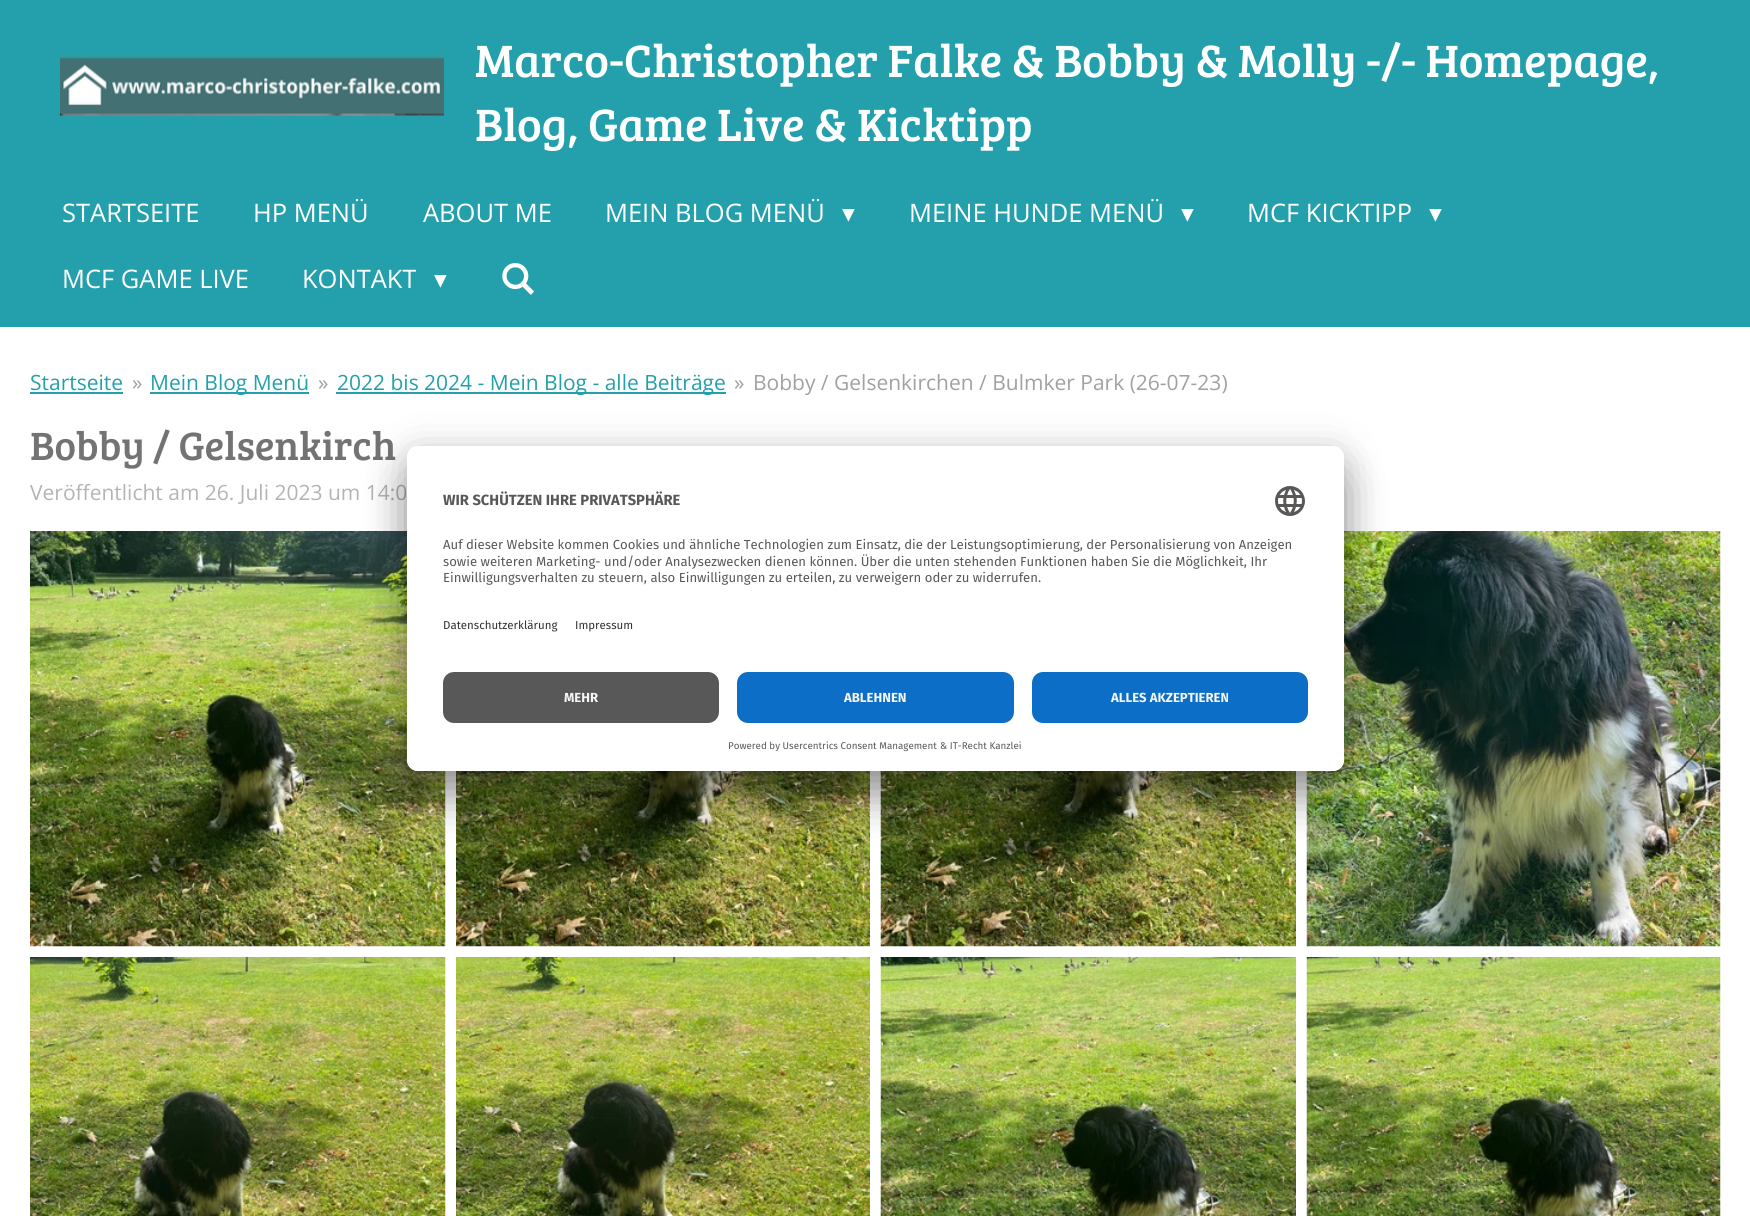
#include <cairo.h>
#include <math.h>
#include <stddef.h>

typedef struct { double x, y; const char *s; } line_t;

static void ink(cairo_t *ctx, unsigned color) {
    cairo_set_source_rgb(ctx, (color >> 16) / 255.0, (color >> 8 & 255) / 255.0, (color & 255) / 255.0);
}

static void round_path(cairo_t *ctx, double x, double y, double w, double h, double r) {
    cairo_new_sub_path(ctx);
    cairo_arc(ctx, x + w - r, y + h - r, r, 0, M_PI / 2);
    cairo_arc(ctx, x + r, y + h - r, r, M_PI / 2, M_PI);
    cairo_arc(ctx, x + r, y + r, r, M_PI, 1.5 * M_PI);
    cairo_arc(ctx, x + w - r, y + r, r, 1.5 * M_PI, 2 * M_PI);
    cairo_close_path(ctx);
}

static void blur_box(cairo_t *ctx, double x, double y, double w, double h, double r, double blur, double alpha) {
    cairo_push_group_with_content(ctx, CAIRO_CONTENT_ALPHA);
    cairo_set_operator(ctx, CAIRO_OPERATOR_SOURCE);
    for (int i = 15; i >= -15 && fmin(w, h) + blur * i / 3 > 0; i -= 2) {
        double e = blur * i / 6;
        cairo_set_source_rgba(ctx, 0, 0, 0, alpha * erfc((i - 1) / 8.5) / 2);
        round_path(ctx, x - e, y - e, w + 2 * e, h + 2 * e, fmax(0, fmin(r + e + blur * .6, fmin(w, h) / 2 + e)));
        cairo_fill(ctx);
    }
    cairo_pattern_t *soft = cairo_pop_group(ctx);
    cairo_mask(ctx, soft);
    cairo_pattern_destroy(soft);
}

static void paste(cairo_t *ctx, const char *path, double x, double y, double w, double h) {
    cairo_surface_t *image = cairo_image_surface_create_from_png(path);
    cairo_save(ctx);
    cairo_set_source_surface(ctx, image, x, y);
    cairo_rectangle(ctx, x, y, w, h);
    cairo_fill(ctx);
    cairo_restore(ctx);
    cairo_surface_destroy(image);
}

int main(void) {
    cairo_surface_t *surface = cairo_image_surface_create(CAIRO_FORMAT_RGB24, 1750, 1216);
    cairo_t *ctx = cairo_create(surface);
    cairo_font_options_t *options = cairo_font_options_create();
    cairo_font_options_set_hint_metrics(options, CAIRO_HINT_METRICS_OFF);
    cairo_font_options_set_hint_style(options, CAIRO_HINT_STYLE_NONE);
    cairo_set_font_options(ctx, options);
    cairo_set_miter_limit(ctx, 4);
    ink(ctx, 0xFFFFFF);
    cairo_paint(ctx);
    ink(ctx, 0x23A0AC);
    cairo_rectangle(ctx, 0, 0, 1750, 327);
    cairo_fill(ctx);
    paste(ctx, "media/1.png", 60, 54, 385, 62);
    cairo_select_font_face(ctx, "Bree Serif", CAIRO_FONT_SLANT_NORMAL, CAIRO_FONT_WEIGHT_NORMAL);
    cairo_set_font_size(ctx, 46.8);
    ink(ctx, 0xFFFFFF);
    cairo_move_to(ctx, 475, 77);
    cairo_show_text(ctx, "Marco-Christopher Falke & Bobby & Molly -/- Homepage,");
    cairo_move_to(ctx, 475, 141);
    cairo_show_text(ctx, "Blog, Game Live & Kicktipp");
    cairo_select_font_face(ctx, "Open Sans", CAIRO_FONT_SLANT_NORMAL, CAIRO_FONT_WEIGHT_NORMAL);
    cairo_set_font_size(ctx, 25.5);
    {
        static const line_t items[] = {
            {62, 222, "STARTSEITE"},
            {253, 222, "HP MENÜ"},
            {423, 222, "ABOUT ME"},
            {605, 222, "MEIN BLOG MENÜ"},
        };
        for (size_t i = 0; i < sizeof items / sizeof *items; i++) {
            cairo_move_to(ctx, items[i].x, items[i].y);
            cairo_show_text(ctx, items[i].s);
        }
    }
    cairo_select_font_face(ctx, "DejaVu Sans", CAIRO_FONT_SLANT_NORMAL, CAIRO_FONT_WEIGHT_NORMAL);
    cairo_move_to(ctx, 842, 222);
    cairo_show_text(ctx, "▾");
    cairo_select_font_face(ctx, "Open Sans", CAIRO_FONT_SLANT_NORMAL, CAIRO_FONT_WEIGHT_NORMAL);
    cairo_move_to(ctx, 909, 222);
    cairo_show_text(ctx, "MEINE HUNDE MENÜ");
    cairo_select_font_face(ctx, "DejaVu Sans", CAIRO_FONT_SLANT_NORMAL, CAIRO_FONT_WEIGHT_NORMAL);
    cairo_move_to(ctx, 1181, 222);
    cairo_show_text(ctx, "▾");
    cairo_select_font_face(ctx, "Open Sans", CAIRO_FONT_SLANT_NORMAL, CAIRO_FONT_WEIGHT_NORMAL);
    cairo_move_to(ctx, 1247, 222);
    cairo_show_text(ctx, "MCF KICKTIPP");
    cairo_select_font_face(ctx, "DejaVu Sans", CAIRO_FONT_SLANT_NORMAL, CAIRO_FONT_WEIGHT_NORMAL);
    cairo_move_to(ctx, 1429, 222);
    cairo_show_text(ctx, "▾");
    cairo_select_font_face(ctx, "Open Sans", CAIRO_FONT_SLANT_NORMAL, CAIRO_FONT_WEIGHT_NORMAL);
    cairo_move_to(ctx, 62, 288);
    cairo_show_text(ctx, "MCF GAME LIVE");
    cairo_move_to(ctx, 302, 288);
    cairo_show_text(ctx, "KONTAKT");
    cairo_select_font_face(ctx, "DejaVu Sans", CAIRO_FONT_SLANT_NORMAL, CAIRO_FONT_WEIGHT_NORMAL);
    cairo_move_to(ctx, 434, 288);
    cairo_show_text(ctx, "▾");
    paste(ctx, "media/2.png", 502, 263, 32, 32);
    cairo_select_font_face(ctx, "Open Sans", CAIRO_FONT_SLANT_NORMAL, CAIRO_FONT_WEIGHT_NORMAL);
    cairo_set_font_size(ctx, 21);
    ink(ctx, 0x23A0AC);
    cairo_move_to(ctx, 30, 390);
    cairo_show_text(ctx, "Startseite");
    cairo_rectangle(ctx, 30, 392, 93, 2);
    cairo_fill(ctx);
    ink(ctx, 0xA1A1A1);
    cairo_move_to(ctx, 132, 390);
    cairo_show_text(ctx, "»");
    ink(ctx, 0x23A0AC);
    cairo_rectangle(ctx, 150, 392, 159, 2);
    cairo_fill(ctx);
    cairo_move_to(ctx, 150, 390);
    cairo_show_text(ctx, "Mein Blog Menü");
    ink(ctx, 0xA1A1A1);
    cairo_move_to(ctx, 318, 390);
    cairo_show_text(ctx, "»");
    ink(ctx, 0x23A0AC);
    cairo_rectangle(ctx, 336, 392, 390, 2);
    cairo_fill(ctx);
    cairo_move_to(ctx, 337, 390);
    cairo_show_text(ctx, "2022 bis 2024 - Mein Blog - alle Beiträge");
    ink(ctx, 0xA1A1A1);
    cairo_move_to(ctx, 734, 390);
    cairo_show_text(ctx, "»");
    cairo_move_to(ctx, 753, 390);
    cairo_show_text(ctx, "Bobby / Gelsenkirchen / Bulmker Park (26-07-23)");
    cairo_select_font_face(ctx, "Bree Serif", CAIRO_FONT_SLANT_NORMAL, CAIRO_FONT_WEIGHT_NORMAL);
    cairo_set_font_size(ctx, 40.75);
    ink(ctx, 0x737373);
    cairo_move_to(ctx, 30, 460);
    cairo_show_text(ctx, "Bobby / Gelsenkirch");
    cairo_select_font_face(ctx, "Open Sans", CAIRO_FONT_SLANT_NORMAL, CAIRO_FONT_WEIGHT_NORMAL);
    cairo_set_font_size(ctx, 21);
    ink(ctx, 0xB4B4B4);
    cairo_move_to(ctx, 30, 500);
    cairo_show_text(ctx, "Veröffentlicht am 26. Juli 2023 um 14:0");
    paste(ctx, "media/3.png", 30, 531, 416, 416);
    paste(ctx, "media/4.png", 456, 771, 414, 176);
    paste(ctx, "media/5.png", 880, 771, 416, 176);
    paste(ctx, "media/6.png", 1306, 531, 415, 416);
    paste(ctx, "media/7.png", 30, 957, 416, 259);
    paste(ctx, "media/8.png", 456, 957, 414, 259);
    paste(ctx, "media/9.png", 880, 957, 416, 259);
    paste(ctx, "media/10.png", 1306, 957, 415, 259);
    ink(ctx, 0x000000);
    blur_box(ctx, 407, 476, 937, 325, 11, 21, 0.3);
    blur_box(ctx, 407, 453, 937, 326, 11, 19.5, 0.22);
    ink(ctx, 0xFFFFFF);
    round_path(ctx, 407, 446, 937, 325, 11);
    cairo_fill(ctx);
    cairo_save(ctx);
    round_path(ctx, 407, 446, 937, 325, 11);
    cairo_clip(ctx);
    cairo_new_path(ctx);
    cairo_move_to(ctx, 418, 446);
    cairo_line_to(ctx, 1333, 446);
    cairo_curve_to(ctx, 1339, 446, 1344, 451, 1344, 457);
    cairo_line_to(ctx, 1344, 660);
    cairo_line_to(ctx, 407, 660);
    cairo_line_to(ctx, 407, 457);
    cairo_curve_to(ctx, 407, 451, 412, 446, 418, 446);
    cairo_close_path(ctx);
    cairo_clip(ctx);
    cairo_rectangle(ctx, 407, 447, 937, 213);
    cairo_fill(ctx);
    cairo_restore(ctx);
    cairo_select_font_face(ctx, "Fira Sans", CAIRO_FONT_SLANT_NORMAL, CAIRO_FONT_WEIGHT_BOLD);
    cairo_set_font_size(ctx, 14.75);
    ink(ctx, 0x595857);
    cairo_move_to(ctx, 443, 505);
    cairo_show_text(ctx, "WIR SCHÜTZEN IHRE PRIVATSPHÄRE");
    paste(ctx, "media/11.png", 1275, 486, 30, 30);
    cairo_select_font_face(ctx, "Fira Sans", CAIRO_FONT_SLANT_NORMAL, CAIRO_FONT_WEIGHT_NORMAL);
    cairo_set_font_size(ctx, 13.12);
    {
        static const line_t items[] = {
            {443, 549, "Auf dieser Website kommen Cookies und ähnliche Technologien zum Einsatz, die der Leistungsoptimierung, der Personalisierung von Anzeigen"},
            {443, 566, "sowie weiteren Marketing- und/oder Analysezwecken dienen können. Über die unten stehenden Funktionen haben Sie die Möglichkeit, Ihr"},
            {443, 582, "Einwilligungsverhalten zu steuern, also Einwilligungen zu erteilen, zu verweigern oder zu widerrufen."},
        };
        for (size_t i = 0; i < sizeof items / sizeof *items; i++) {
            cairo_move_to(ctx, items[i].x, items[i].y);
            cairo_show_text(ctx, items[i].s);
        }
    }
    cairo_set_font_size(ctx, 11.5);
    ink(ctx, 0x303030);
    cairo_move_to(ctx, 443, 629);
    cairo_show_text(ctx, "Datenschutzerklärung");
    cairo_move_to(ctx, 575, 629);
    cairo_show_text(ctx, "Impressum");
    ink(ctx, 0xFFFFFF);
    cairo_new_path(ctx);
    cairo_move_to(ctx, 407, 660);
    cairo_line_to(ctx, 1344, 660);
    cairo_line_to(ctx, 1344, 760);
    cairo_curve_to(ctx, 1344, 766, 1339, 771, 1333, 771);
    cairo_line_to(ctx, 418, 771);
    cairo_curve_to(ctx, 412, 771, 407, 766, 407, 760);
    cairo_close_path(ctx);
    cairo_fill(ctx);
    ink(ctx, 0x585858);
    round_path(ctx, 443, 672, 276, 51, 11);
    cairo_fill(ctx);
    cairo_select_font_face(ctx, "Fira Sans", CAIRO_FONT_SLANT_NORMAL, CAIRO_FONT_WEIGHT_BOLD);
    cairo_set_font_size(ctx, 13.12);
    ink(ctx, 0xF5F5F5);
    cairo_move_to(ctx, 564, 702);
    cairo_show_text(ctx, "MEHR");
    ink(ctx, 0x0C6EC6);
    round_path(ctx, 737, 672, 277, 51, 11);
    cairo_fill(ctx);
    ink(ctx, 0xF5F5F5);
    cairo_move_to(ctx, 844, 702);
    cairo_show_text(ctx, "ABLEHNEN");
    ink(ctx, 0x0C6EC6);
    round_path(ctx, 1032, 672, 276, 51, 11);
    cairo_fill(ctx);
    ink(ctx, 0xF5F5F5);
    cairo_move_to(ctx, 1111, 702);
    cairo_show_text(ctx, "ALLES AKZEPTIEREN");
    cairo_select_font_face(ctx, "Fira Sans", CAIRO_FONT_SLANT_NORMAL, CAIRO_FONT_WEIGHT_NORMAL);
    cairo_set_font_size(ctx, 9.8);
    ink(ctx, 0x595857);
    cairo_move_to(ctx, 728, 749);
    cairo_show_text(ctx, "Powered by Usercentrics Consent Management");
    cairo_move_to(ctx, 940, 749);
    cairo_show_text(ctx, "& IT-Recht Kanzlei");
    cairo_surface_write_to_png(surface, "image.png");
    cairo_font_options_destroy(options);
    cairo_destroy(ctx);
    cairo_surface_destroy(surface);
    return 0;
}
